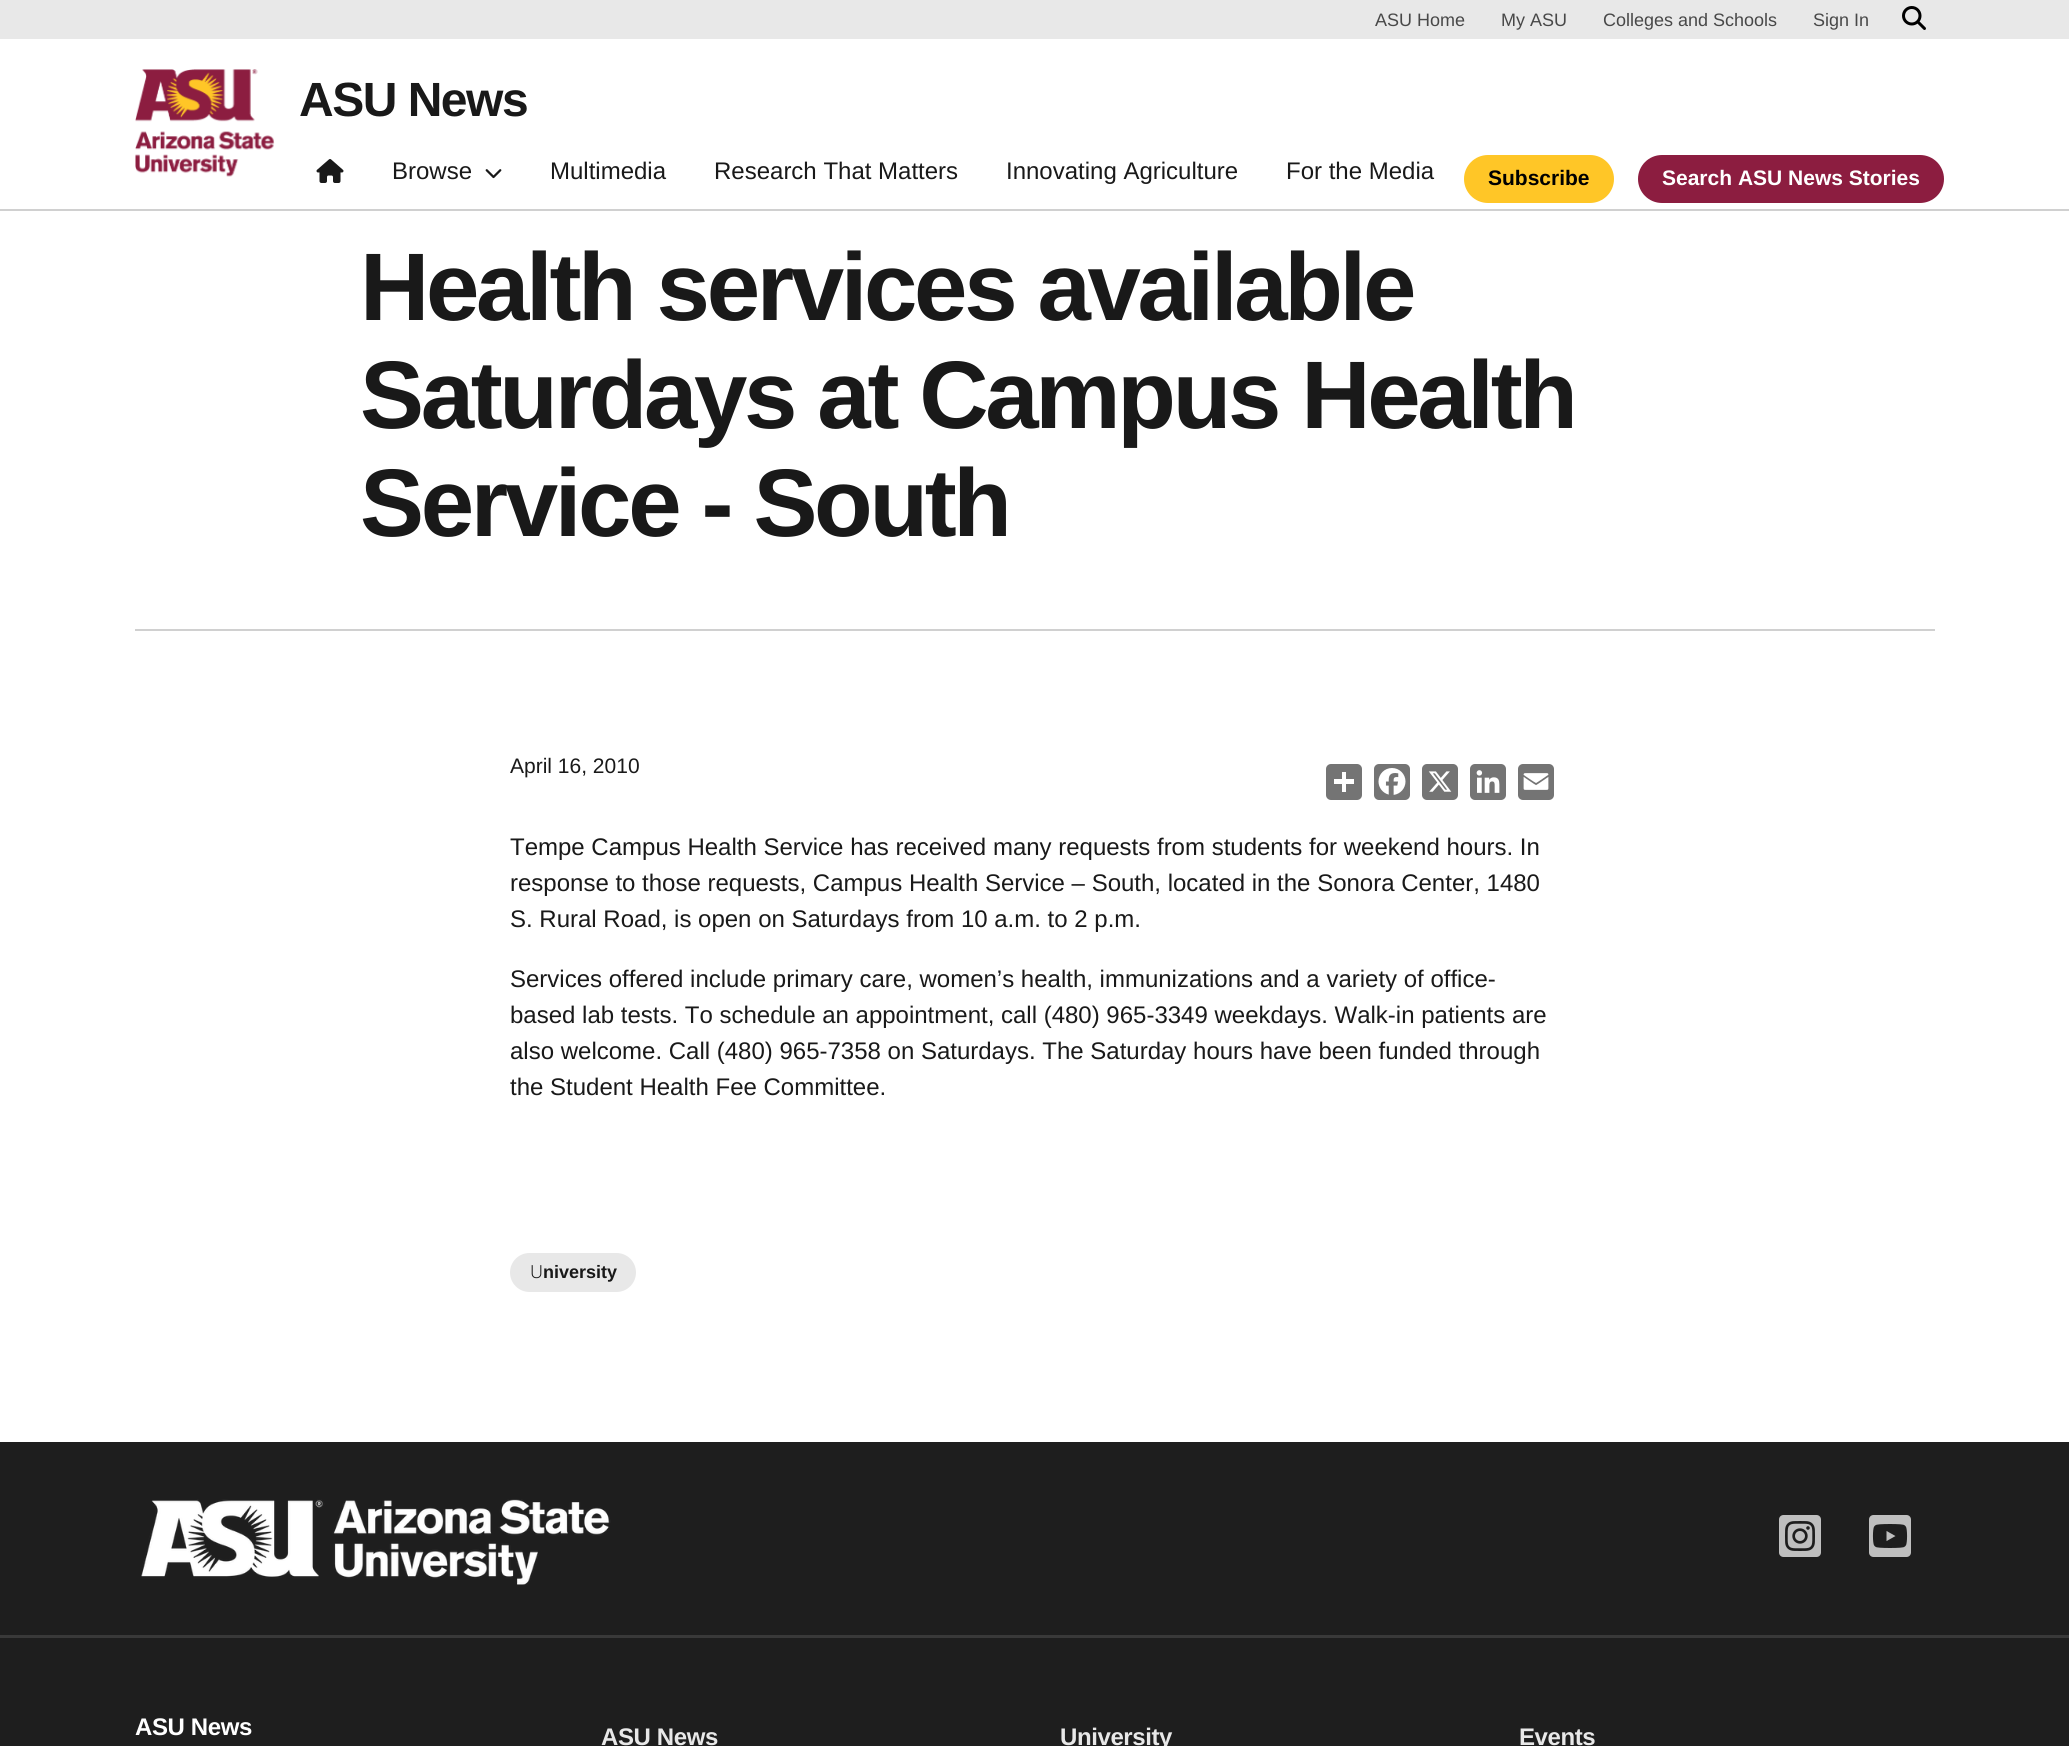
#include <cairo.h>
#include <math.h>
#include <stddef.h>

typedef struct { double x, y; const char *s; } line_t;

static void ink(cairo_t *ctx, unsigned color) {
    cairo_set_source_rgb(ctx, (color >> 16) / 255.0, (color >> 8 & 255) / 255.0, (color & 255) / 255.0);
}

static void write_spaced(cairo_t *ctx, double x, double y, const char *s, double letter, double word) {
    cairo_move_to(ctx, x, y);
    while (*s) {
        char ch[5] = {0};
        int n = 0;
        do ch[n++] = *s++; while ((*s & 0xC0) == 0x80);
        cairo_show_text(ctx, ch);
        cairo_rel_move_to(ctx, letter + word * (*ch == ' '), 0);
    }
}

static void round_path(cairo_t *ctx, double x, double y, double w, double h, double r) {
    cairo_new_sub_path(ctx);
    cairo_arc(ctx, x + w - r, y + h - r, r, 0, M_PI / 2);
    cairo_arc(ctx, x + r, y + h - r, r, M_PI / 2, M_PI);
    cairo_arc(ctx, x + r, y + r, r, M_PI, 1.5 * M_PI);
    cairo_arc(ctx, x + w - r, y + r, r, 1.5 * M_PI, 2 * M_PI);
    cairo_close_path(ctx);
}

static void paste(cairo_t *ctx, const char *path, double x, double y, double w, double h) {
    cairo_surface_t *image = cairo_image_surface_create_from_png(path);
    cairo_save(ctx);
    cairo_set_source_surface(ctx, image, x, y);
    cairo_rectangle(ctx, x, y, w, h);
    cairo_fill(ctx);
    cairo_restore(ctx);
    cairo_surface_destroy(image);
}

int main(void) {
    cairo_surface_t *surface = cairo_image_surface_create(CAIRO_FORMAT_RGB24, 2069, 1746);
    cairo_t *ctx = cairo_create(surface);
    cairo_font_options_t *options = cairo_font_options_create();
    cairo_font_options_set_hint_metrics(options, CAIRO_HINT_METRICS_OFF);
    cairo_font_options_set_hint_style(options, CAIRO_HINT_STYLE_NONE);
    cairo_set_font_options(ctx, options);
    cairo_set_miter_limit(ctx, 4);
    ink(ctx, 0xFFFFFF);
    cairo_paint(ctx);
    ink(ctx, 0xE8E8E8);
    cairo_rectangle(ctx, 0, 0, 2069, 39);
    cairo_fill(ctx);
    cairo_select_font_face(ctx, "Liberation Sans", CAIRO_FONT_SLANT_NORMAL, CAIRO_FONT_WEIGHT_NORMAL);
    cairo_set_font_size(ctx, 18);
    ink(ctx, 0x484848);
    {
        static const line_t items[] = {
            {1375, 26, "ASU Home"},
            {1501, 26, "My ASU"},
            {1603, 26, "Colleges and Schools"},
            {1813, 26, "Sign In"},
        };
        for (size_t i = 0; i < sizeof items / sizeof *items; i++) {
            cairo_move_to(ctx, items[i].x, items[i].y);
            cairo_show_text(ctx, items[i].s);
        }
    }
    paste(ctx, "media/1.png", 1902, 6, 24, 24);
    ink(ctx, 0xD0D0D0);
    cairo_rectangle(ctx, 0, 209, 2069, 2);
    cairo_fill(ctx);
    paste(ctx, "media/2.png", 135, 69, 140, 108);
    cairo_select_font_face(ctx, "Liberation Sans", CAIRO_FONT_SLANT_NORMAL, CAIRO_FONT_WEIGHT_BOLD);
    cairo_set_font_size(ctx, 48);
    ink(ctx, 0x191919);
    write_spaced(ctx, 299, 116, "ASU News", -1.5, 0);
    paste(ctx, "media/3.png", 316, 159, 28, 24);
    cairo_select_font_face(ctx, "Liberation Sans", CAIRO_FONT_SLANT_NORMAL, CAIRO_FONT_WEIGHT_NORMAL);
    cairo_set_font_size(ctx, 24);
    cairo_move_to(ctx, 392, 179);
    cairo_show_text(ctx, "Browse");
    paste(ctx, "media/4.png", 485, 169, 17, 10);
    {
        static const line_t items[] = {
            {550, 179, "Multimedia"},
            {714, 179, "Research That Matters"},
            {1006, 179, "Innovating Agriculture"},
            {1286, 179, "For the Media"},
        };
        for (size_t i = 0; i < sizeof items / sizeof *items; i++) {
            cairo_move_to(ctx, items[i].x, items[i].y);
            cairo_show_text(ctx, items[i].s);
        }
    }
    ink(ctx, 0xFFC627);
    round_path(ctx, 1464, 155, 150, 48, 24);
    cairo_fill(ctx);
    cairo_select_font_face(ctx, "Liberation Sans", CAIRO_FONT_SLANT_NORMAL, CAIRO_FONT_WEIGHT_BOLD);
    cairo_set_font_size(ctx, 21);
    ink(ctx, 0x000000);
    cairo_move_to(ctx, 1488, 185);
    cairo_show_text(ctx, "Subscribe");
    ink(ctx, 0x8C1D40);
    round_path(ctx, 1638, 155, 306, 48, 24);
    cairo_fill(ctx);
    ink(ctx, 0xFFFFFF);
    cairo_move_to(ctx, 1662, 185);
    cairo_show_text(ctx, "Search ASU News Stories");
    cairo_set_font_size(ctx, 96);
    ink(ctx, 0x191919);
    {
        static const line_t items[] = {
            {360, 320, "Health services available"},
            {360, 428, "Saturdays at Campus Health"},
            {360, 536, "Service - South"},
        };
        for (size_t i = 0; i < sizeof items / sizeof *items; i++) {
            write_spaced(ctx, items[i].x, items[i].y, items[i].s, -3.35, 0);
        }
    }
    ink(ctx, 0xD0D0D0);
    cairo_rectangle(ctx, 135, 629, 1800, 2);
    cairo_fill(ctx);
    cairo_select_font_face(ctx, "Liberation Sans", CAIRO_FONT_SLANT_NORMAL, CAIRO_FONT_WEIGHT_NORMAL);
    cairo_set_font_size(ctx, 21);
    ink(ctx, 0x191919);
    cairo_move_to(ctx, 510, 773);
    cairo_show_text(ctx, "April 16, 2010");
    ink(ctx, 0x747474);
    round_path(ctx, 1326, 764, 36, 36, 5);
    cairo_fill(ctx);
    ink(ctx, 0xFFFFFF);
    cairo_rectangle(ctx, 1342, 772, 4, 20);
    cairo_fill(ctx);
    cairo_rectangle(ctx, 1334, 779, 20, 5);
    cairo_fill(ctx);
    ink(ctx, 0x747474);
    round_path(ctx, 1374, 764, 36, 36, 5);
    cairo_fill(ctx);
    paste(ctx, "media/5.png", 1378, 768, 28, 27);
    round_path(ctx, 1422, 764, 36, 36, 5);
    cairo_fill(ctx);
    paste(ctx, "media/6.png", 1428, 771, 24, 21);
    round_path(ctx, 1470, 764, 36, 36, 5);
    cairo_fill(ctx);
    paste(ctx, "media/7.png", 1476, 770, 24, 23);
    round_path(ctx, 1518, 764, 36, 36, 5);
    cairo_fill(ctx);
    paste(ctx, "media/8.png", 1523, 773, 26, 17);
    cairo_set_font_size(ctx, 24);
    ink(ctx, 0x191919);
    {
        static const line_t items[] = {
            {510, 855, "Tempe Campus Health Service has received many requests from students for weekend hours. In"},
            {510, 891, "response to those requests, Campus Health Service – South, located in the Sonora Center, 1480"},
            {510, 927, "S. Rural Road, is open on Saturdays from 10 a.m. to 2 p.m."},
            {510, 987, "Services offered include primary care, women’s health, immunizations and a variety of office-"},
            {510, 1023, "based lab tests. To schedule an appointment, call (480) 965-3349 weekdays. Walk-in patients are"},
            {510, 1059, "also welcome. Call (480) 965-7358 on Saturdays. The Saturday hours have been funded through"},
            {510, 1095, "the Student Health Fee Committee."},
        };
        for (size_t i = 0; i < sizeof items / sizeof *items; i++) {
            cairo_move_to(ctx, items[i].x, items[i].y);
            cairo_show_text(ctx, items[i].s);
        }
    }
    ink(ctx, 0xE8E8E8);
    round_path(ctx, 510, 1253, 126, 39, 19.5);
    cairo_fill(ctx);
    cairo_select_font_face(ctx, "Noto Sans Light", CAIRO_FONT_SLANT_NORMAL, CAIRO_FONT_WEIGHT_NORMAL);
    cairo_set_font_size(ctx, 18);
    ink(ctx, 0x191919);
    cairo_move_to(ctx, 530, 1278);
    cairo_show_text(ctx, "U");
    cairo_select_font_face(ctx, "Liberation Sans", CAIRO_FONT_SLANT_NORMAL, CAIRO_FONT_WEIGHT_BOLD);
    cairo_move_to(ctx, 543, 1278);
    cairo_show_text(ctx, "niversity");
    ink(ctx, 0x1E1E1E);
    cairo_rectangle(ctx, 0, 1442, 2069, 193);
    cairo_fill(ctx);
    paste(ctx, "media/9.png", 141, 1499, 470, 86);
    paste(ctx, "media/10.png", 1779, 1515, 42, 42);
    paste(ctx, "media/11.png", 1869, 1515, 42, 42);
    cairo_rectangle(ctx, 0, 1638, 2069, 108);
    cairo_fill(ctx);
    ink(ctx, 0x393939);
    cairo_rectangle(ctx, 0, 1635, 2069, 3);
    cairo_fill(ctx);
    cairo_set_font_size(ctx, 24);
    ink(ctx, 0xFFFFFF);
    write_spaced(ctx, 135, 1735, "ASU News", -0.4, 0);
    ink(ctx, 0xE8E8E8);
    {
        static const line_t items[] = {
            {601, 1745, "ASU News"},
            {1060, 1745, "University"},
            {1519, 1745, "Events"},
        };
        for (size_t i = 0; i < sizeof items / sizeof *items; i++) {
            write_spaced(ctx, items[i].x, items[i].y, items[i].s, -0.4, 0);
        }
    }
    cairo_surface_write_to_png(surface, "image.png");
    cairo_font_options_destroy(options);
    cairo_destroy(ctx);
    cairo_surface_destroy(surface);
    return 0;
}
